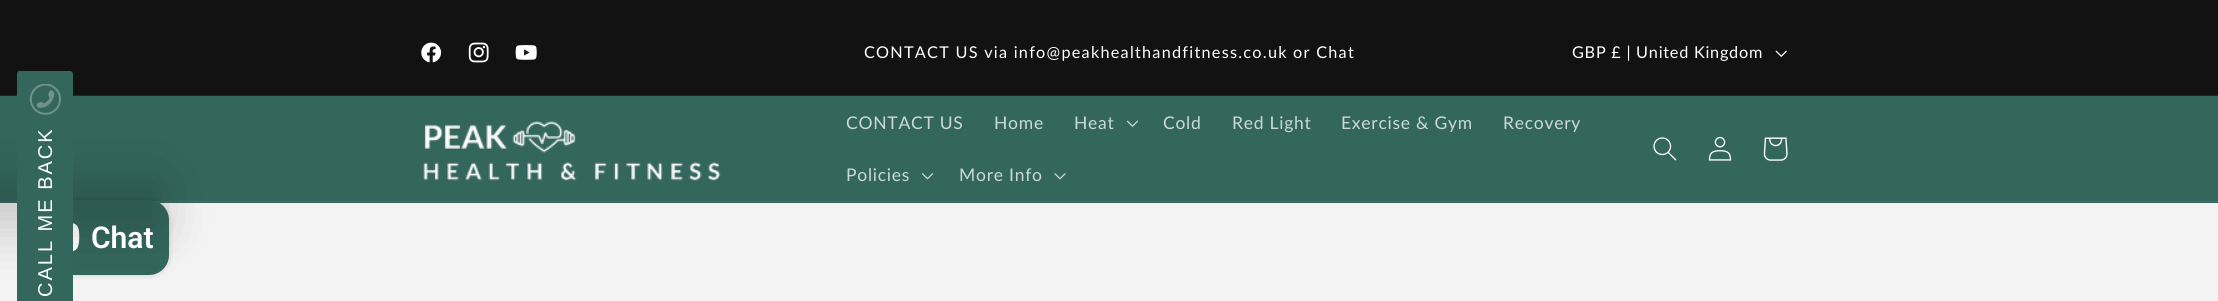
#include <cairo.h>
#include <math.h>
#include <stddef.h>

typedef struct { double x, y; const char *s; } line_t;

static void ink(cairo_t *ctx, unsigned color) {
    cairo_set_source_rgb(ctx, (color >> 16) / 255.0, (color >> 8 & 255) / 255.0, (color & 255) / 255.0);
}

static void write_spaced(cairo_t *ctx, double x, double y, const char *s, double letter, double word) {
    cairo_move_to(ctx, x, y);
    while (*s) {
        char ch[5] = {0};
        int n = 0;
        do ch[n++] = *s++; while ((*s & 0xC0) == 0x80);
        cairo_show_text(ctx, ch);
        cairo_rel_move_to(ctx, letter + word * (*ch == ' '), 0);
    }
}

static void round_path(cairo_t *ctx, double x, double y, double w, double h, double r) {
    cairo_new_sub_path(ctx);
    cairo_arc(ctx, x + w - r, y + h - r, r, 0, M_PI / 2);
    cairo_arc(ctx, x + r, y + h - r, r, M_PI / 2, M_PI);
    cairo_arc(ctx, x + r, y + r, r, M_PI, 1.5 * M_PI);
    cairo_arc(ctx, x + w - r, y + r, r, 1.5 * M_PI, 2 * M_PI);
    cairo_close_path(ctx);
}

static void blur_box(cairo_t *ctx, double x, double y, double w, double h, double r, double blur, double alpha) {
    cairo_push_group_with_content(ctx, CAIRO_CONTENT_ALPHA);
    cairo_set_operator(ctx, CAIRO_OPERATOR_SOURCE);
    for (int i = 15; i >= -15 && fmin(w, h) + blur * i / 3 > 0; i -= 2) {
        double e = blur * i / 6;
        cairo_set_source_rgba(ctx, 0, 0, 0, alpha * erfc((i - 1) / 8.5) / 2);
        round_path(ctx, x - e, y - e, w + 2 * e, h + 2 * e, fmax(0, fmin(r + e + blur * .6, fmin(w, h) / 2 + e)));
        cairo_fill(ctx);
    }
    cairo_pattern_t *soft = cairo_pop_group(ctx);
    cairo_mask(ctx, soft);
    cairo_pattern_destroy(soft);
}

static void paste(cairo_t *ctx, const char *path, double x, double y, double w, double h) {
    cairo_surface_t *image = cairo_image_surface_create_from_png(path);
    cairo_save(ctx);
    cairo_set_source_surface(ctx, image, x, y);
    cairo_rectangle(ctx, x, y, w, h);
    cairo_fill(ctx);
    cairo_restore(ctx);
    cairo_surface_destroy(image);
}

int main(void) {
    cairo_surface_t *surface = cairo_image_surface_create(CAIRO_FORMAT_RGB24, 2218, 301);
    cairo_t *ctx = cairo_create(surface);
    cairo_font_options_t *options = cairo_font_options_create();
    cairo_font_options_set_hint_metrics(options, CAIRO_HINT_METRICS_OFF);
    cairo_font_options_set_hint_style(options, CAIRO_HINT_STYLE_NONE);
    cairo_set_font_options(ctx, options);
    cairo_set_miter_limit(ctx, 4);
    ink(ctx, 0xF3F3F3);
    cairo_paint(ctx);
    ink(ctx, 0x121212);
    cairo_rectangle(ctx, 0, 0, 2218, 95);
    cairo_fill(ctx);
    ink(ctx, 0x252525);
    cairo_rectangle(ctx, 0, 95, 2218, 1);
    cairo_fill(ctx);
    paste(ctx, "media/1.png", 421, 42, 21, 21);
    paste(ctx, "media/2.png", 468, 42, 21, 21);
    paste(ctx, "media/3.png", 515, 45, 22, 15);
    cairo_select_font_face(ctx, "Lato", CAIRO_FONT_SLANT_NORMAL, CAIRO_FONT_WEIGHT_NORMAL);
    cairo_set_font_size(ctx, 16.25);
    ink(ctx, 0xFFFFFF);
    write_spaced(ctx, 864, 58, "CONTACT US via info@peakhealthandfitness.co.uk or Chat", 1.25, 0);
    write_spaced(ctx, 1572, 58, "GBP £ | United Kingdom", 0.75, 0);
    paste(ctx, "media/4.png", 1775, 50, 12, 7);
    ink(ctx, 0x34675C);
    cairo_rectangle(ctx, 0, 96, 2218, 107);
    cairo_fill(ctx);
    ink(ctx, 0x447369);
    cairo_rectangle(ctx, 0, 201, 2218, 1);
    cairo_fill(ctx);
    ink(ctx, 0x000000);
    blur_box(ctx, 28, 200, 141, 75, 20, 3, 0.15);
    ink(ctx, 0x34675C);
    round_path(ctx, 28, 200, 141, 75, 20);
    cairo_fill(ctx);
    paste(ctx, "media/6.png", 73, 223, 7, 29);
    ink(ctx, 0x000000);
    blur_box(ctx, -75, 176, 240, 57, 2.5, 25, 0.16);
    ink(ctx, 0x34675C);
    cairo_new_path(ctx);
    cairo_move_to(ctx, 17, 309);
    cairo_line_to(ctx, 17, 74);
    cairo_curve_to(ctx, 17, 73, 18, 71, 19, 71);
    cairo_line_to(ctx, 70, 71);
    cairo_curve_to(ctx, 72, 71, 73, 73, 73, 74);
    cairo_line_to(ctx, 73, 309);
    cairo_curve_to(ctx, 73, 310, 72, 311, 70, 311);
    cairo_line_to(ctx, 19, 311);
    cairo_curve_to(ctx, 18, 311, 17, 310, 17, 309);
    cairo_close_path(ctx);
    cairo_fill(ctx);
    paste(ctx, "media/5.png", 29, 84, 32, 31);
    cairo_select_font_face(ctx, "Liberation Sans", CAIRO_FONT_SLANT_NORMAL, CAIRO_FONT_WEIGHT_NORMAL);
    cairo_set_font_size(ctx, 20);
    ink(ctx, 0xFFFFFF);
    cairo_save(ctx);
    cairo_translate(ctx, 52, 297);
    cairo_rotate(ctx, -90 * M_PI / 180);
    write_spaced(ctx, 0, 0, "CALL ME BACK", 2, 0);
    cairo_restore(ctx);
    cairo_select_font_face(ctx, "Roboto SemiBold", CAIRO_FONT_SLANT_NORMAL, CAIRO_FONT_WEIGHT_NORMAL);
    cairo_set_font_size(ctx, 30);
    cairo_move_to(ctx, 91, 248);
    cairo_show_text(ctx, "Chat");
    paste(ctx, "media/7.png", 423, 121, 298, 60);
    cairo_select_font_face(ctx, "Lato", CAIRO_FONT_SLANT_NORMAL, CAIRO_FONT_WEIGHT_NORMAL);
    cairo_set_font_size(ctx, 17.5);
    ink(ctx, 0xCCD9D6);
    {
        static const line_t items[] = {
            {846, 129, "CONTACT US"},
            {994, 129, "Home"},
            {1074, 129, "Heat"},
        };
        for (size_t i = 0; i < sizeof items / sizeof *items; i++) {
            write_spaced(ctx, items[i].x, items[i].y, items[i].s, 0.75, 0);
        }
    }
    paste(ctx, "media/8.png", 1126, 120, 13, 7);
    {
        static const line_t items[] = {
            {1163, 129, "Cold"},
            {1232, 129, "Red Light"},
            {1341, 129, "Exercise & Gym"},
            {1503, 129, "Recovery"},
            {846, 181, "Policies"},
        };
        for (size_t i = 0; i < sizeof items / sizeof *items; i++) {
            write_spaced(ctx, items[i].x, items[i].y, items[i].s, 0.75, 0);
        }
    }
    paste(ctx, "media/9.png", 921, 173, 13, 7);
    write_spaced(ctx, 959, 181, "More Info", 0.75, 0);
    paste(ctx, "media/10.png", 1054, 173, 12, 7);
    paste(ctx, "media/11.png", 1653, 137, 24, 24);
    paste(ctx, "media/12.png", 1708, 136, 24, 25);
    paste(ctx, "media/13.png", 1763, 137, 25, 24);
    cairo_surface_write_to_png(surface, "image.png");
    cairo_font_options_destroy(options);
    cairo_destroy(ctx);
    cairo_surface_destroy(surface);
    return 0;
}
